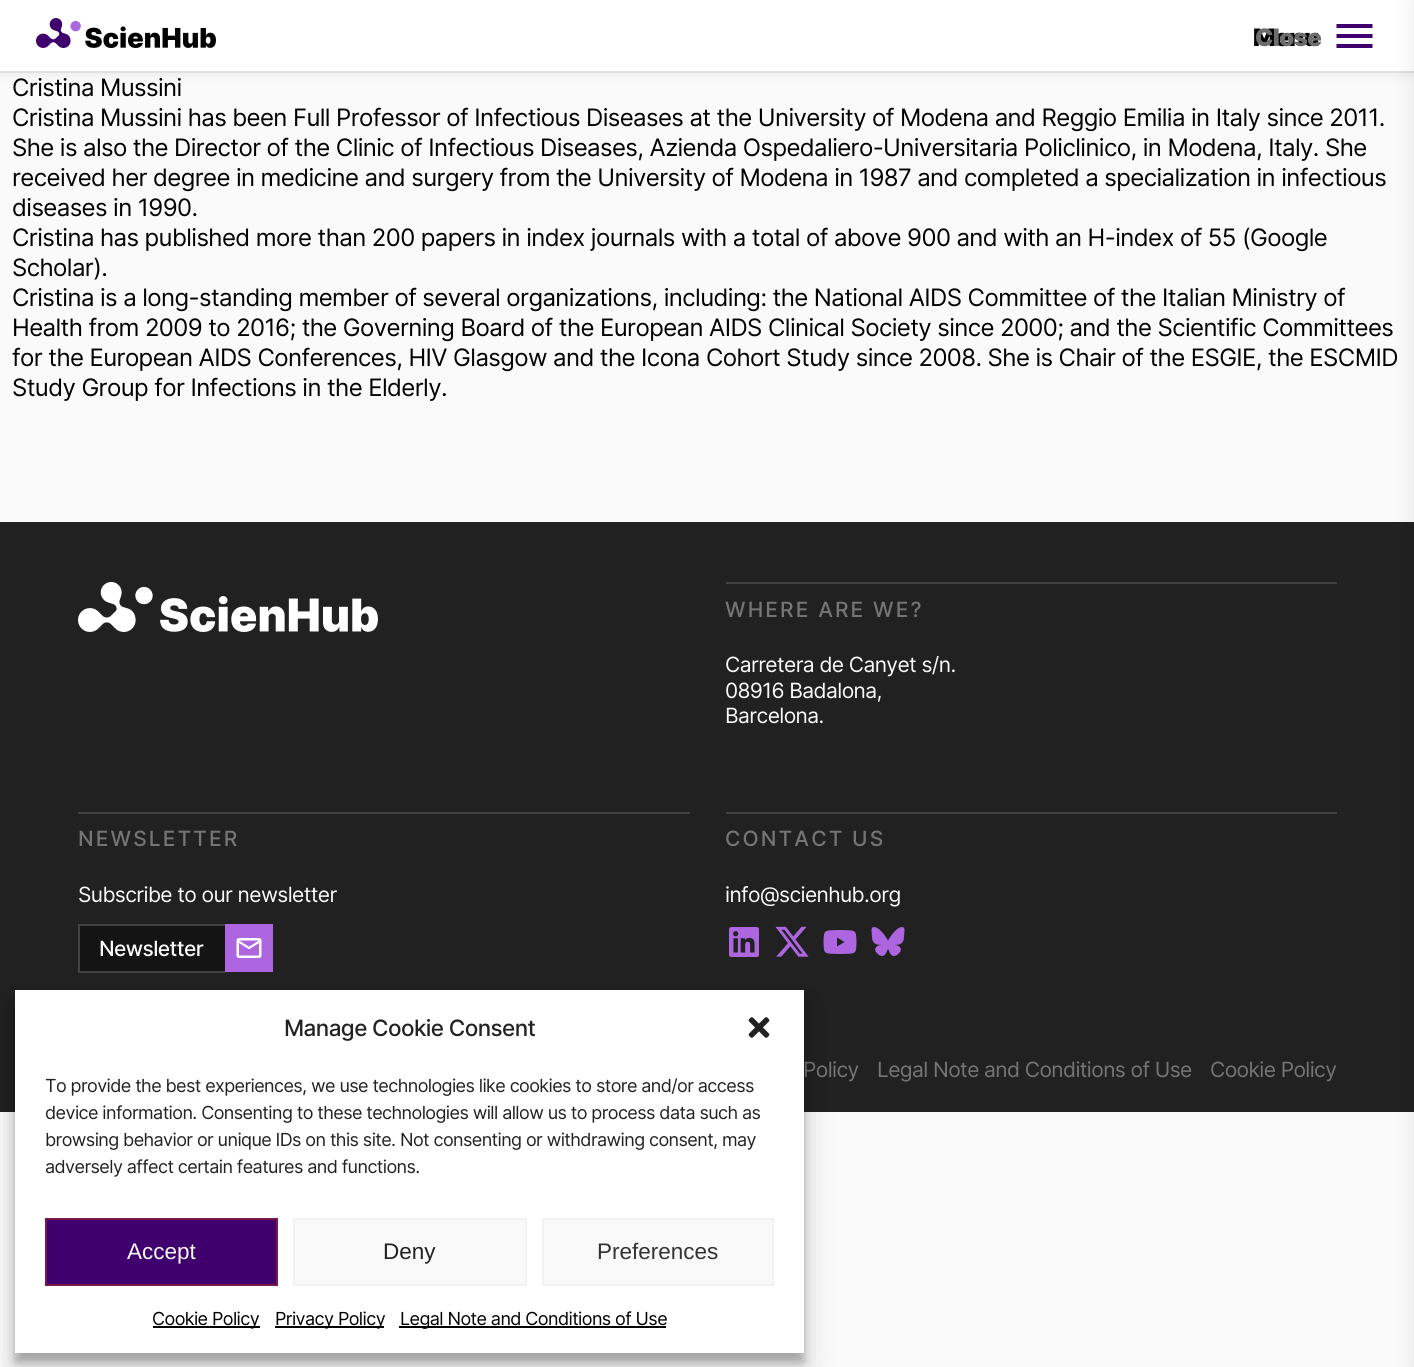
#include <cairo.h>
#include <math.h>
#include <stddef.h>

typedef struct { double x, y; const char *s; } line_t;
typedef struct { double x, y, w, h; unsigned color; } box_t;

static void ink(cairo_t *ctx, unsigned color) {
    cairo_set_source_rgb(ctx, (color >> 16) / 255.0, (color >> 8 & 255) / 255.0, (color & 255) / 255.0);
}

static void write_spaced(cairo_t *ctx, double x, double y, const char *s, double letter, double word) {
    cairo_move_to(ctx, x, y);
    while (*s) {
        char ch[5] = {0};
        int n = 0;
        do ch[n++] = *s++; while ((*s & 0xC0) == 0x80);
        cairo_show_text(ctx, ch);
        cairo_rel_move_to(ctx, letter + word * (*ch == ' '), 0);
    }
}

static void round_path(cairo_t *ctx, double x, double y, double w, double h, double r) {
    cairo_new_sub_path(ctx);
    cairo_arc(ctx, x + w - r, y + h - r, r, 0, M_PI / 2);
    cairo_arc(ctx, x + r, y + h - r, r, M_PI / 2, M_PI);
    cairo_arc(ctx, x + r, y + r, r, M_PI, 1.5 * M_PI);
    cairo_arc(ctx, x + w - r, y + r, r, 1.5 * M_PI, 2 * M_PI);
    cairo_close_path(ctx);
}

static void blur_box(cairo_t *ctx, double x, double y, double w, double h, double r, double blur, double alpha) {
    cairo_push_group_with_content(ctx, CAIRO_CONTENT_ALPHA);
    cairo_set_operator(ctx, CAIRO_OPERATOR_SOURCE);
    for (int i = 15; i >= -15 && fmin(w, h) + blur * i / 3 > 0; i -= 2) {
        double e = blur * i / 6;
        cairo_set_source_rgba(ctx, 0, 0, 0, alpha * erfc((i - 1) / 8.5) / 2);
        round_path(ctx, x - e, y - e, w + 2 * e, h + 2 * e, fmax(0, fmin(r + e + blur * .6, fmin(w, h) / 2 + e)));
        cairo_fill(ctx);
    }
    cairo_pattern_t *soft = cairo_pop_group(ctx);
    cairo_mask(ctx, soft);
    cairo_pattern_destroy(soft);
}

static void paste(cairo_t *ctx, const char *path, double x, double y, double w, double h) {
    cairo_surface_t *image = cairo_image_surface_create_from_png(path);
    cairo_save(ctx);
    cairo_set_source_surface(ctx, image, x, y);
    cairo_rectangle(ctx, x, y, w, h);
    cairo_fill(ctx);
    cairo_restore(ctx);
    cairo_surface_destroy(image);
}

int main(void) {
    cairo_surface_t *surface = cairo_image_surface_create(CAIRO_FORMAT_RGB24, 1414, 1367);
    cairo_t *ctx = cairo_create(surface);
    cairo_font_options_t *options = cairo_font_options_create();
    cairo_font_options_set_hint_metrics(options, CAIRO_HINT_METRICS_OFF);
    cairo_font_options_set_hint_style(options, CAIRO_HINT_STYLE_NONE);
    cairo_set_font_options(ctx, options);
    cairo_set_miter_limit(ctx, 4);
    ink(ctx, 0xFAFAFA);
    cairo_paint(ctx);
    ink(ctx, 0x000000);
    blur_box(ctx, 0, 0, 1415, 72, 0, 6, 0.1);
    ink(ctx, 0xFFFFFF);
    cairo_rectangle(ctx, 0, 0, 1414, 71);
    cairo_fill(ctx);
    ink(ctx, 0xE0E0E0);
    cairo_rectangle(ctx, 0, 71, 1414, 2);
    cairo_fill(ctx);
    paste(ctx, "media/1.png", 36, 18, 180, 30);
    cairo_select_font_face(ctx, "Inter Black", CAIRO_FONT_SLANT_NORMAL, CAIRO_FONT_WEIGHT_NORMAL);
    cairo_set_font_size(ctx, 24);
    ink(ctx, 0x000000);
    write_spaced(ctx, 1253, 46, "Menu", -0.6, 0);
    ink(ctx, 0x6D6D6D);
    write_spaced(ctx, 1255, 46, "Close", -0.6, 0);
    ink(ctx, 0x3F006E);
    cairo_new_path(ctx);
    cairo_move_to(ctx, 1336.5, 48);
    cairo_line_to(ctx, 1372.5, 48);
    cairo_line_to(ctx, 1372.5, 44);
    cairo_line_to(ctx, 1336.5, 44);
    cairo_close_path(ctx);
    cairo_move_to(ctx, 1336.5, 38);
    cairo_line_to(ctx, 1372.5, 38);
    cairo_line_to(ctx, 1372.5, 34);
    cairo_line_to(ctx, 1336.5, 34);
    cairo_close_path(ctx);
    cairo_move_to(ctx, 1336.5, 24);
    cairo_line_to(ctx, 1336.5, 28);
    cairo_line_to(ctx, 1372.5, 28);
    cairo_line_to(ctx, 1372.5, 24);
    cairo_close_path(ctx);
    cairo_fill(ctx);
    ink(ctx, 0x212121);
    cairo_rectangle(ctx, 0, 522, 1414, 590);
    cairo_fill(ctx);
    ink(ctx, 0x000000);
    blur_box(ctx, 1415, 0, 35, 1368, 0, 12, 0.1);
    cairo_select_font_face(ctx, "Inter", CAIRO_FONT_SLANT_NORMAL, CAIRO_FONT_WEIGHT_NORMAL);
    ink(ctx, 0x000000);
    {
        static const line_t items[] = {
            {12, 96, "Cristina Mussini"},
            {12, 126, "Cristina Mussini has been Full Professor of Infectious Diseases at the University of Modena and Reggio Emilia in Italy since 2011."},
            {12, 156, "She is also the Director of the Clinic of Infectious Diseases, Azienda Ospedaliero-Universitaria Policlinico, in Modena, Italy. She"},
            {12, 186, "received her degree in medicine and surgery from the University of Modena in 1987 and completed a specialization in infectious"},
            {12, 216, "diseases in 1990."},
            {12, 246, "Cristina has published more than 200 papers in index journals with a total of above 900 and with an H-index of 55 (Google"},
            {12, 276, "Scholar)."},
            {12, 306, "Cristina is a long-standing member of several organizations, including: the National AIDS Committee of the Italian Ministry of"},
            {12, 336, "Health from 2009 to 2016; the Governing Board of the European AIDS Clinical Society since 2000; and the Scientific Committees"},
            {12, 366, "for the European AIDS Conferences, HIV Glasgow and the Icona Cohort Study since 2008. She is Chair of the ESGIE, the ESCMID"},
            {12, 396, "Study Group for Infections in the Elderly."},
        };
        for (size_t i = 0; i < sizeof items / sizeof *items; i++) {
            write_spaced(ctx, items[i].x, items[i].y, items[i].s, -0.6, 0);
        }
    }
    paste(ctx, "media/2.png", 78, 582, 300, 50);
    ink(ctx, 0x424242);
    cairo_rectangle(ctx, 726, 582, 611, 2);
    cairo_fill(ctx);
    cairo_select_font_face(ctx, "Inter Medium", CAIRO_FONT_SLANT_NORMAL, CAIRO_FONT_WEIGHT_NORMAL);
    cairo_set_font_size(ctx, 21);
    ink(ctx, 0x757575);
    write_spaced(ctx, 725, 617, "WHERE ARE WE?", 2.1, 0);
    cairo_select_font_face(ctx, "Inter", CAIRO_FONT_SLANT_NORMAL, CAIRO_FONT_WEIGHT_NORMAL);
    ink(ctx, 0xFAFAFA);
    {
        static const line_t items[] = {
            {725, 672, "Carretera de Canyet s/n."},
            {725, 698, "08916 Badalona,"},
            {725, 723, "Barcelona."},
        };
        for (size_t i = 0; i < sizeof items / sizeof *items; i++) {
            write_spaced(ctx, items[i].x, items[i].y, items[i].s, -0.6, 0);
        }
    }
    ink(ctx, 0x424242);
    cairo_rectangle(ctx, 78, 812, 612, 2);
    cairo_fill(ctx);
    cairo_select_font_face(ctx, "Inter Medium", CAIRO_FONT_SLANT_NORMAL, CAIRO_FONT_WEIGHT_NORMAL);
    ink(ctx, 0x757575);
    write_spaced(ctx, 78, 846, "NEWSLETTER", 2.1, 0);
    cairo_select_font_face(ctx, "Inter", CAIRO_FONT_SLANT_NORMAL, CAIRO_FONT_WEIGHT_NORMAL);
    ink(ctx, 0xFAFAFA);
    write_spaced(ctx, 78, 902, "Subscribe to our newsletter", -0.6, 0);
    {
        static const box_t items[] = {
            {80, 926, 145, 45, 0x141414},
            {78, 924, 147, 2, 0x424242},
            {78, 971, 147, 2, 0x424242},
            {78, 924, 2, 48, 0x424242},
        };
        for (size_t i = 0; i < sizeof items / sizeof *items; i++) {
            ink(ctx, items[i].color);
            cairo_rectangle(ctx, items[i].x, items[i].y, items[i].w, items[i].h);
            cairo_fill(ctx);
        }
    }
    cairo_select_font_face(ctx, "Inter Medium", CAIRO_FONT_SLANT_NORMAL, CAIRO_FONT_WEIGHT_NORMAL);
    ink(ctx, 0xFAFAFA);
    write_spaced(ctx, 99, 956, "Newsletter", -0.6, 0);
    ink(ctx, 0xAD66DF);
    cairo_rectangle(ctx, 225, 924, 48, 48);
    cairo_fill(ctx);
    paste(ctx, "media/3.png", 236, 938, 26, 20);
    ink(ctx, 0x424242);
    cairo_rectangle(ctx, 726, 812, 611, 2);
    cairo_fill(ctx);
    ink(ctx, 0x757575);
    write_spaced(ctx, 725, 846, "CONTACT US", 2.1, 0);
    cairo_select_font_face(ctx, "Inter", CAIRO_FONT_SLANT_NORMAL, CAIRO_FONT_WEIGHT_NORMAL);
    ink(ctx, 0xFAFAFA);
    write_spaced(ctx, 725, 902, "info@scienhub.org", -0.6, 0);
    paste(ctx, "media/4.png", 729, 927, 30, 30);
    paste(ctx, "media/5.png", 775, 926, 34, 31);
    paste(ctx, "media/6.png", 823, 930, 34, 24);
    paste(ctx, "media/7.png", 871, 927, 34, 29);
    ink(ctx, 0x757575);
    {
        static const line_t items[] = {
            {803, 1077, "Policy"},
            {877, 1077, "Legal Note and Conditions of Use"},
            {1210, 1077, "Cookie Policy"},
        };
        for (size_t i = 0; i < sizeof items / sizeof *items; i++) {
            write_spaced(ctx, items[i].x, items[i].y, items[i].s, -0.6, 0);
        }
    }
    ink(ctx, 0x000000);
    blur_box(ctx, 15, 999, 789, 363, 0, 4.5, 0.23);
    blur_box(ctx, 15, 1005, 789, 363, 0, 15, 0.19);
    ink(ctx, 0xFFFFFF);
    cairo_rectangle(ctx, 15, 990, 789, 363);
    cairo_fill(ctx);
    cairo_select_font_face(ctx, "Inter Medium", CAIRO_FONT_SLANT_NORMAL, CAIRO_FONT_WEIGHT_NORMAL);
    cairo_set_font_size(ctx, 22.5);
    ink(ctx, 0x222222);
    write_spaced(ctx, 284, 1036, "Manage Cookie Consent", -0.6, 0);
    paste(ctx, "media/8.png", 748, 1017, 22, 21);
    cairo_select_font_face(ctx, "Inter", CAIRO_FONT_SLANT_NORMAL, CAIRO_FONT_WEIGHT_NORMAL);
    cairo_set_font_size(ctx, 18);
    {
        static const line_t items[] = {
            {45, 1092, "To provide the best experiences, we use technologies like cookies to store and/or access"},
            {45, 1119, "device information. Consenting to these technologies will allow us to process data such as"},
            {45, 1146, "browsing behavior or unique IDs on this site. Not consenting or withdrawing consent, may"},
            {45, 1173, "adversely affect certain features and functions."},
        };
        for (size_t i = 0; i < sizeof items / sizeof *items; i++) {
            write_spaced(ctx, items[i].x, items[i].y, items[i].s, -0.6, 0);
        }
    }
    ink(ctx, 0x3F006E);
    cairo_rectangle(ctx, 46, 1219, 231, 66);
    cairo_fill_preserve(ctx);
    ink(ctx, 0x7C1648);
    cairo_stroke(ctx);
    cairo_select_font_face(ctx, "Liberation Sans", CAIRO_FONT_SLANT_NORMAL, CAIRO_FONT_WEIGHT_NORMAL);
    cairo_set_font_size(ctx, 22.5);
    ink(ctx, 0xFAFAFA);
    cairo_move_to(ctx, 127, 1259);
    cairo_show_text(ctx, "Accept");
    ink(ctx, 0xF9F9F9);
    cairo_rectangle(ctx, 294, 1219, 232, 66);
    cairo_fill_preserve(ctx);
    ink(ctx, 0xF2F2F2);
    cairo_stroke(ctx);
    ink(ctx, 0x222222);
    cairo_move_to(ctx, 383, 1259);
    cairo_show_text(ctx, "Deny");
    ink(ctx, 0xF9F9F9);
    cairo_rectangle(ctx, 543, 1219, 230, 66);
    cairo_fill_preserve(ctx);
    ink(ctx, 0xF2F2F2);
    cairo_stroke(ctx);
    ink(ctx, 0x333333);
    cairo_move_to(ctx, 597, 1259);
    cairo_show_text(ctx, "Preferences");
    ink(ctx, 0x000000);
    cairo_rectangle(ctx, 153, 1326, 107, 2);
    cairo_fill(ctx);
    cairo_select_font_face(ctx, "Inter", CAIRO_FONT_SLANT_NORMAL, CAIRO_FONT_WEIGHT_NORMAL);
    cairo_set_font_size(ctx, 18);
    write_spaced(ctx, 152, 1325, "Cookie Policy", -0.6, 0);
    cairo_rectangle(ctx, 275, 1326, 109, 2);
    cairo_fill(ctx);
    write_spaced(ctx, 275, 1325, "Privacy Policy", -0.6, 0);
    cairo_rectangle(ctx, 399, 1326, 267, 2);
    cairo_fill(ctx);
    write_spaced(ctx, 400, 1325, "Legal Note and Conditions of Use", -0.6, 0);
    cairo_surface_write_to_png(surface, "image.png");
    cairo_font_options_destroy(options);
    cairo_destroy(ctx);
    cairo_surface_destroy(surface);
    return 0;
}
